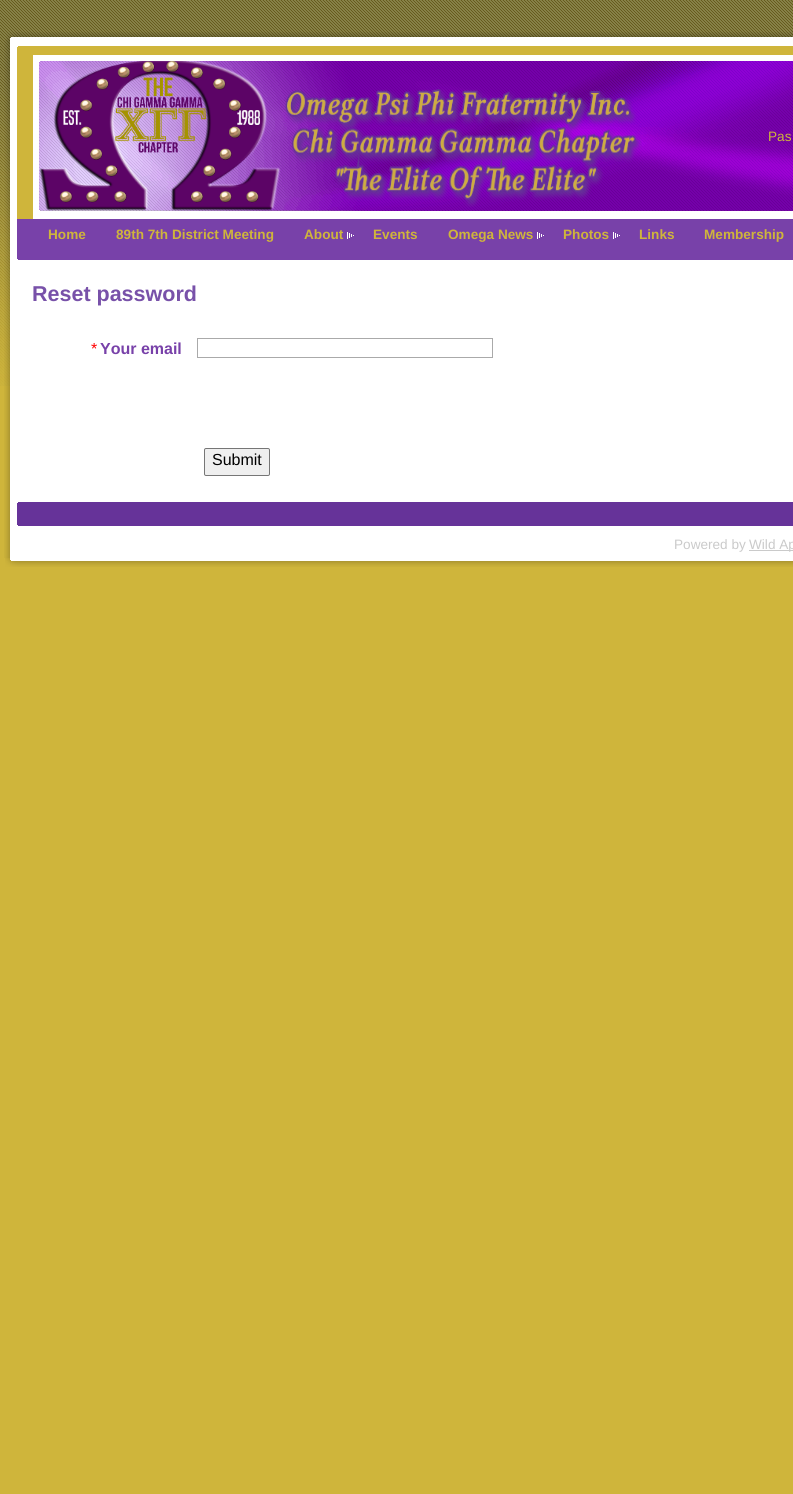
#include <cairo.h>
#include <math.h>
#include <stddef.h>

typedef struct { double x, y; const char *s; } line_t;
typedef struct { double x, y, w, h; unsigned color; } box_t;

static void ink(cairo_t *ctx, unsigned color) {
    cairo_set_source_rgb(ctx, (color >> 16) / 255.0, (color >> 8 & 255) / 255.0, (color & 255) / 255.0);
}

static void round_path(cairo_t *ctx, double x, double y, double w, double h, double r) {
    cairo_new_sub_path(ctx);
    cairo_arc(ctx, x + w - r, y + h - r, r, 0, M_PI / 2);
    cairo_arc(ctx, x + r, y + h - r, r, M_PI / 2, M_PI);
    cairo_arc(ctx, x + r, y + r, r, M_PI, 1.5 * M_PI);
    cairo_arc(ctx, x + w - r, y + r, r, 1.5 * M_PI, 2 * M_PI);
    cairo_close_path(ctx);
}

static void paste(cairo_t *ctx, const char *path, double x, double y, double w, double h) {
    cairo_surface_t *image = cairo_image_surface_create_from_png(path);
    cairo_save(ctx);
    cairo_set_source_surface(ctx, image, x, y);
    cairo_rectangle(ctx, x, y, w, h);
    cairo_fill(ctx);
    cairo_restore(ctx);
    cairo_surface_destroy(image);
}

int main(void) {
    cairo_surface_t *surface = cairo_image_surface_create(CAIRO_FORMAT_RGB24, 793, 1494);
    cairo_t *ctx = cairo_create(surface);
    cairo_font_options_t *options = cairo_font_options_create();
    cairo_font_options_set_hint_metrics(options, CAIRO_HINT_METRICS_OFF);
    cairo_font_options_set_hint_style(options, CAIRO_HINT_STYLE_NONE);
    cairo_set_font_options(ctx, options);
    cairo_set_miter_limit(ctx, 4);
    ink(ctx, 0xCFB53B);
    cairo_paint(ctx);
    paste(ctx, "media/1.png", 0, 0, 793, 386);
    paste(ctx, "media/2.png", 6, 32, 787, 8);
    ink(ctx, 0xFFFFFF);
    cairo_rectangle(ctx, 11, 37, 782, 1);
    cairo_fill(ctx);
    cairo_rectangle(ctx, 10, 38, 783, 520);
    cairo_fill(ctx);
    paste(ctx, "media/3.png", 4, 40, 6, 518);
    {
        static const box_t items[] = {
            {18, 46, 775, 1, 0xCFB53B},
            {17, 47, 776, 172, 0xCFB53B},
            {33, 55, 760, 164, 0xFFFFFF},
        };
        for (size_t i = 0; i < sizeof items / sizeof *items; i++) {
            ink(ctx, items[i].color);
            cairo_rectangle(ctx, items[i].x, items[i].y, items[i].w, items[i].h);
            cairo_fill(ctx);
        }
    }
    paste(ctx, "media/4.png", 39, 61, 754, 150);
    paste(ctx, "media/5.png", 39, 61, 241, 150);
    paste(ctx, "media/6.png", 285, 89, 357, 118);
    cairo_select_font_face(ctx, "Liberation Sans", CAIRO_FONT_SLANT_NORMAL, CAIRO_FONT_WEIGHT_NORMAL);
    cairo_set_font_size(ctx, 13.6);
    ink(ctx, 0xCFB53B);
    cairo_move_to(ctx, 768, 141);
    cairo_show_text(ctx, "Pas");
    ink(ctx, 0x7841A9);
    cairo_rectangle(ctx, 17, 219, 776, 40);
    cairo_fill(ctx);
    cairo_rectangle(ctx, 18, 259, 775, 1);
    cairo_fill(ctx);
    cairo_select_font_face(ctx, "Liberation Sans", CAIRO_FONT_SLANT_NORMAL, CAIRO_FONT_WEIGHT_BOLD);
    ink(ctx, 0xCFB53B);
    cairo_move_to(ctx, 48, 239);
    cairo_show_text(ctx, "Home");
    cairo_move_to(ctx, 116, 239);
    cairo_show_text(ctx, "89th 7th District Meeting");
    paste(ctx, "media/7.png", 347, 232, 7, 7);
    cairo_move_to(ctx, 304, 239);
    cairo_show_text(ctx, "About");
    cairo_move_to(ctx, 373, 239);
    cairo_show_text(ctx, "Events");
    paste(ctx, "media/7.png", 537, 232, 7, 7);
    cairo_move_to(ctx, 448, 239);
    cairo_show_text(ctx, "Omega News");
    paste(ctx, "media/7.png", 613, 232, 7, 7);
    {
        static const line_t items[] = {
            {563, 239, "Photos"},
            {639, 239, "Links"},
            {704, 239, "Membership"},
        };
        for (size_t i = 0; i < sizeof items / sizeof *items; i++) {
            cairo_move_to(ctx, items[i].x, items[i].y);
            cairo_show_text(ctx, items[i].s);
        }
    }
    cairo_set_font_size(ctx, 21.5);
    ink(ctx, 0x7851A9);
    cairo_move_to(ctx, 32, 301);
    cairo_show_text(ctx, "Reset password");
    cairo_select_font_face(ctx, "Liberation Sans", CAIRO_FONT_SLANT_NORMAL, CAIRO_FONT_WEIGHT_NORMAL);
    cairo_set_font_size(ctx, 16);
    ink(ctx, 0xFF0000);
    cairo_move_to(ctx, 91, 354);
    cairo_show_text(ctx, "*");
    cairo_select_font_face(ctx, "Liberation Sans", CAIRO_FONT_SLANT_NORMAL, CAIRO_FONT_WEIGHT_BOLD);
    ink(ctx, 0x7841A9);
    cairo_move_to(ctx, 100, 354);
    cairo_show_text(ctx, "Your email");
    cairo_rectangle(ctx, 197.5, 338.5, 295, 19);
    ink(ctx, 0xAAAAAA);
    cairo_set_line_width(ctx, 1);
    cairo_stroke(ctx);
    ink(ctx, 0xEFEFEF);
    round_path(ctx, 204.5, 448.5, 65, 27, 1.5);
    cairo_fill_preserve(ctx);
    ink(ctx, 0x767676);
    cairo_stroke(ctx);
    cairo_select_font_face(ctx, "Liberation Sans", CAIRO_FONT_SLANT_NORMAL, CAIRO_FONT_WEIGHT_NORMAL);
    ink(ctx, 0x000000);
    cairo_move_to(ctx, 212, 465);
    cairo_show_text(ctx, "Submit");
    {
        static const box_t items[] = {
            {18, 502, 775, 1, 0x663399},
            {17, 503, 776, 22, 0x663399},
            {18, 525, 775, 1, 0x663399},
        };
        for (size_t i = 0; i < sizeof items / sizeof *items; i++) {
            ink(ctx, items[i].color);
            cairo_rectangle(ctx, items[i].x, items[i].y, items[i].w, items[i].h);
            cairo_fill(ctx);
        }
    }
    cairo_set_font_size(ctx, 13.6);
    ink(ctx, 0xCACACA);
    cairo_move_to(ctx, 674, 549);
    cairo_show_text(ctx, "Powered by");
    cairo_rectangle(ctx, 749, 550, 44, 1);
    cairo_fill(ctx);
    cairo_move_to(ctx, 749, 549);
    cairo_show_text(ctx, "Wild Ap");
    paste(ctx, "media/8.png", 5, 558, 788, 9);
    ink(ctx, 0xFFFFFF);
    cairo_rectangle(ctx, 10, 558, 783, 2);
    cairo_fill(ctx);
    cairo_rectangle(ctx, 11, 560, 782, 1);
    cairo_fill(ctx);
    cairo_surface_write_to_png(surface, "image.png");
    cairo_font_options_destroy(options);
    cairo_destroy(ctx);
    cairo_surface_destroy(surface);
    return 0;
}
